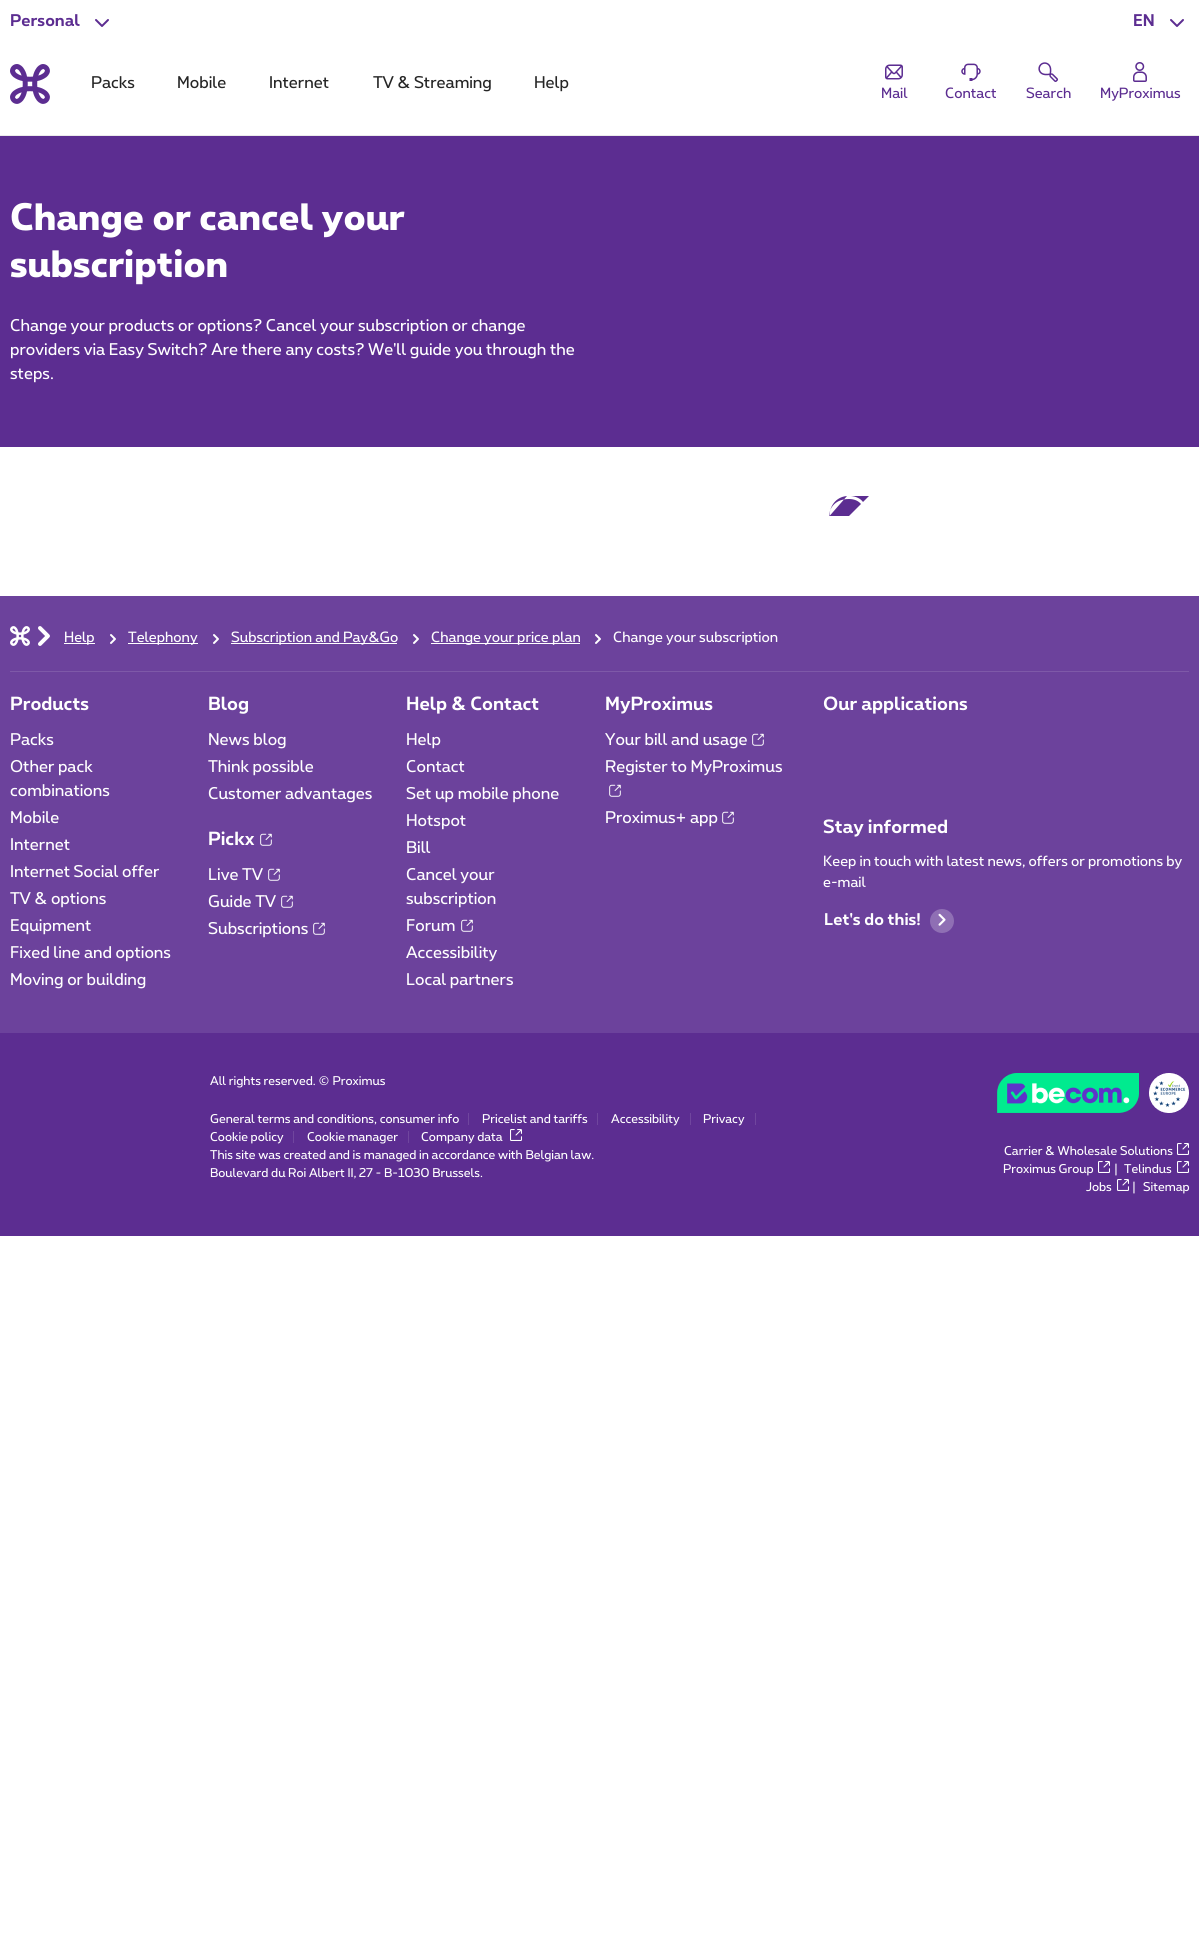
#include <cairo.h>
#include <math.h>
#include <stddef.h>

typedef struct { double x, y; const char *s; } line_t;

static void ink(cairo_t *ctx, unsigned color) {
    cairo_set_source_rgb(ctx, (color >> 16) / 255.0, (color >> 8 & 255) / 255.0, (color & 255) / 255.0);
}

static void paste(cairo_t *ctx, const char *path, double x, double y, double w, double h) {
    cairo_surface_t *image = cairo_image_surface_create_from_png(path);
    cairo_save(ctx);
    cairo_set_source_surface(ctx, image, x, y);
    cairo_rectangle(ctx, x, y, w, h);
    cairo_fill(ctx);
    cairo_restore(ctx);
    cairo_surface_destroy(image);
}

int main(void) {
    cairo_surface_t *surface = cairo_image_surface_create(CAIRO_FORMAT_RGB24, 1199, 1941);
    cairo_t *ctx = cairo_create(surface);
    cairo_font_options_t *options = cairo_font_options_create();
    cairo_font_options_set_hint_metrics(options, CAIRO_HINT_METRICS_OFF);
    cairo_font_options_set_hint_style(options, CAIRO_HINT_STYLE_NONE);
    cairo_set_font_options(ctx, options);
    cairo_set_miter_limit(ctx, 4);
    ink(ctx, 0xFFFFFF);
    cairo_paint(ctx);
    ink(ctx, 0xEBEBEB);
    cairo_rectangle(ctx, 0, 135, 1199, 1);
    cairo_fill(ctx);
    cairo_select_font_face(ctx, "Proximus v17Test", CAIRO_FONT_SLANT_NORMAL, CAIRO_FONT_WEIGHT_BOLD);
    cairo_set_font_size(ctx, 16);
    ink(ctx, 0x5C2D91);
    cairo_move_to(ctx, 10, 26);
    cairo_show_text(ctx, "Personal");
    cairo_new_path(ctx);
    cairo_move_to(ctx, 108, 20);
    cairo_line_to(ctx, 102, 26);
    cairo_line_to(ctx, 96, 20);
    cairo_set_line_cap(ctx, CAIRO_LINE_CAP_ROUND);
    cairo_set_line_join(ctx, CAIRO_LINE_JOIN_ROUND);
    cairo_stroke(ctx);
    cairo_move_to(ctx, 1133, 26);
    cairo_show_text(ctx, "EN");
    cairo_new_path(ctx);
    cairo_move_to(ctx, 1183, 20);
    cairo_line_to(ctx, 1177, 26);
    cairo_line_to(ctx, 1171, 20);
    cairo_stroke(ctx);
    paste(ctx, "media/1.png", 10, 64, 40, 40);
    cairo_select_font_face(ctx, "Proximus v17Test", CAIRO_FONT_SLANT_NORMAL, CAIRO_FONT_WEIGHT_NORMAL);
    ink(ctx, 0x252525);
    {
        static const line_t items[] = {
            {91, 88, "Packs"},
            {177, 88, "Mobile"},
            {269, 88, "Internet"},
            {373, 88, "TV & Streaming"},
            {534, 88, "Help"},
        };
        for (size_t i = 0; i < sizeof items / sizeof *items; i++) {
            cairo_move_to(ctx, items[i].x, items[i].y);
            cairo_show_text(ctx, items[i].s);
        }
    }
    paste(ctx, "media/2.png", 885, 64, 18, 16);
    cairo_set_font_size(ctx, 14);
    ink(ctx, 0x5C2D91);
    cairo_move_to(ctx, 881, 98);
    cairo_show_text(ctx, "Mail");
    paste(ctx, "media/3.png", 961, 63, 20, 18);
    cairo_move_to(ctx, 945, 98);
    cairo_show_text(ctx, "Contact");
    paste(ctx, "media/4.png", 1038, 62, 21, 20);
    cairo_move_to(ctx, 1026, 98);
    cairo_show_text(ctx, "Search");
    paste(ctx, "media/5.png", 1133, 62, 14, 20);
    cairo_move_to(ctx, 1100, 98);
    cairo_show_text(ctx, "MyProximus");
    cairo_rectangle(ctx, 0, 136, 1199, 311);
    cairo_fill(ctx);
    cairo_select_font_face(ctx, "Proximus v17Test ExtraBold", CAIRO_FONT_SLANT_NORMAL, CAIRO_FONT_WEIGHT_NORMAL);
    cairo_set_font_size(ctx, 36);
    ink(ctx, 0xFFFFFF);
    cairo_move_to(ctx, 10, 230);
    cairo_show_text(ctx, "Change or cancel your");
    cairo_move_to(ctx, 10, 277);
    cairo_show_text(ctx, "subscription");
    cairo_select_font_face(ctx, "Proximus v17Test", CAIRO_FONT_SLANT_NORMAL, CAIRO_FONT_WEIGHT_NORMAL);
    cairo_set_font_size(ctx, 16);
    {
        static const line_t items[] = {
            {10, 331, "Change your products or options? Cancel your subscription or change"},
            {10, 355, "providers via Easy Switch? Are there any costs? We'll guide you through the"},
            {10, 379, "steps."},
        };
        for (size_t i = 0; i < sizeof items / sizeof *items; i++) {
            cairo_move_to(ctx, items[i].x, items[i].y);
            cairo_show_text(ctx, items[i].s);
        }
    }
    ink(ctx, 0x5C2D91);
    cairo_set_fill_rule(ctx, CAIRO_FILL_RULE_EVEN_ODD);
    cairo_new_path(ctx);
    cairo_move_to(ctx, 849, 499);
    cairo_curve_to(ctx, 854.5, 499, 858.5, 501, 861, 504);
    cairo_line_to(ctx, 849, 516);
    cairo_line_to(ctx, 829, 516);
    cairo_curve_to(ctx, 829.5, 507.5, 835.5, 499, 849, 499);
    cairo_close_path(ctx);
    cairo_move_to(ctx, 863, 502);
    cairo_curve_to(ctx, 860.5, 498.5, 856, 496.5, 851, 496);
    cairo_line_to(ctx, 869, 496);
    cairo_close_path(ctx);
    cairo_move_to(ctx, 829.5, 516);
    cairo_curve_to(ctx, 829.5, 506.5, 835.5, 497, 847, 496);
    cairo_close_path(ctx);
    cairo_fill(ctx);
    ink(ctx, 0x6C429C);
    cairo_rectangle(ctx, 0, 596, 1199, 437);
    cairo_fill(ctx);
    ink(ctx, 0x7E59A8);
    cairo_rectangle(ctx, 10, 671, 1179, 1);
    cairo_fill(ctx);
    paste(ctx, "media/6.png", 10, 626, 20, 20);
    paste(ctx, "media/7.png", 38, 626, 12, 20);
    ink(ctx, 0xFFFFFF);
    cairo_rectangle(ctx, 64, 643, 31, 1);
    cairo_fill(ctx);
    cairo_set_font_size(ctx, 14);
    cairo_move_to(ctx, 64, 642);
    cairo_show_text(ctx, "Help");
    paste(ctx, "media/8.png", 110, 634, 6, 10);
    cairo_rectangle(ctx, 128, 643, 70, 1);
    cairo_fill(ctx);
    cairo_move_to(ctx, 128, 642);
    cairo_show_text(ctx, "Telephony");
    paste(ctx, "media/8.png", 213, 634, 6, 10);
    cairo_rectangle(ctx, 231, 643, 166, 1);
    cairo_fill(ctx);
    cairo_move_to(ctx, 231, 642);
    cairo_show_text(ctx, "Subscription and Pay&Go");
    paste(ctx, "media/8.png", 413, 634, 6, 10);
    cairo_rectangle(ctx, 431, 643, 149, 1);
    cairo_fill(ctx);
    cairo_move_to(ctx, 431, 642);
    cairo_show_text(ctx, "Change your price plan");
    paste(ctx, "media/8.png", 595, 634, 6, 10);
    cairo_move_to(ctx, 613, 642);
    cairo_show_text(ctx, "Change your subscription");
    cairo_select_font_face(ctx, "Proximus v17Test", CAIRO_FONT_SLANT_NORMAL, CAIRO_FONT_WEIGHT_BOLD);
    cairo_set_font_size(ctx, 18);
    cairo_move_to(ctx, 10, 710);
    cairo_show_text(ctx, "Products");
    cairo_select_font_face(ctx, "Proximus v17Test", CAIRO_FONT_SLANT_NORMAL, CAIRO_FONT_WEIGHT_NORMAL);
    cairo_set_font_size(ctx, 16);
    {
        static const line_t items[] = {
            {10, 745, "Packs"},
            {10, 772, "Other pack"},
            {10, 796, "combinations"},
            {10, 823, "Mobile"},
            {10, 850, "Internet"},
            {10, 877, "Internet Social offer"},
            {10, 904, "TV & options"},
            {10, 931, "Equipment"},
            {10, 958, "Fixed line and options"},
            {10, 985, "Moving or building"},
        };
        for (size_t i = 0; i < sizeof items / sizeof *items; i++) {
            cairo_move_to(ctx, items[i].x, items[i].y);
            cairo_show_text(ctx, items[i].s);
        }
    }
    cairo_select_font_face(ctx, "Proximus v17Test", CAIRO_FONT_SLANT_NORMAL, CAIRO_FONT_WEIGHT_BOLD);
    cairo_set_font_size(ctx, 18);
    cairo_move_to(ctx, 208, 710);
    cairo_show_text(ctx, "Blog");
    cairo_select_font_face(ctx, "Proximus v17Test", CAIRO_FONT_SLANT_NORMAL, CAIRO_FONT_WEIGHT_NORMAL);
    cairo_set_font_size(ctx, 16);
    {
        static const line_t items[] = {
            {208, 745, "News blog"},
            {208, 772, "Think possible"},
            {208, 799, "Customer advantages"},
        };
        for (size_t i = 0; i < sizeof items / sizeof *items; i++) {
            cairo_move_to(ctx, items[i].x, items[i].y);
            cairo_show_text(ctx, items[i].s);
        }
    }
    cairo_select_font_face(ctx, "Proximus v17Test", CAIRO_FONT_SLANT_NORMAL, CAIRO_FONT_WEIGHT_BOLD);
    cairo_set_font_size(ctx, 18);
    cairo_move_to(ctx, 208, 845);
    cairo_show_text(ctx, "Pickx");
    paste(ctx, "media/9.png", 260, 833, 12, 13);
    cairo_select_font_face(ctx, "Proximus v17Test", CAIRO_FONT_SLANT_NORMAL, CAIRO_FONT_WEIGHT_NORMAL);
    cairo_set_font_size(ctx, 16);
    cairo_move_to(ctx, 208, 880);
    cairo_show_text(ctx, "Live TV");
    paste(ctx, "media/9.png", 268, 868, 12, 13);
    cairo_move_to(ctx, 208, 907);
    cairo_show_text(ctx, "Guide TV");
    paste(ctx, "media/9.png", 281, 895, 12, 13);
    cairo_move_to(ctx, 208, 934);
    cairo_show_text(ctx, "Subscriptions");
    paste(ctx, "media/9.png", 313, 922, 12, 13);
    cairo_select_font_face(ctx, "Proximus v17Test", CAIRO_FONT_SLANT_NORMAL, CAIRO_FONT_WEIGHT_BOLD);
    cairo_set_font_size(ctx, 18);
    cairo_move_to(ctx, 406, 710);
    cairo_show_text(ctx, "Help & Contact");
    cairo_select_font_face(ctx, "Proximus v17Test", CAIRO_FONT_SLANT_NORMAL, CAIRO_FONT_WEIGHT_NORMAL);
    cairo_set_font_size(ctx, 16);
    {
        static const line_t items[] = {
            {406, 745, "Help"},
            {406, 772, "Contact"},
            {406, 799, "Set up mobile phone"},
            {406, 826, "Hotspot"},
            {406, 853, "Bill"},
            {406, 880, "Cancel your"},
            {406, 904, "subscription"},
            {406, 931, "Forum"},
        };
        for (size_t i = 0; i < sizeof items / sizeof *items; i++) {
            cairo_move_to(ctx, items[i].x, items[i].y);
            cairo_show_text(ctx, items[i].s);
        }
    }
    paste(ctx, "media/9.png", 461, 919, 12, 13);
    cairo_move_to(ctx, 406, 958);
    cairo_show_text(ctx, "Accessibility");
    cairo_move_to(ctx, 406, 985);
    cairo_show_text(ctx, "Local partners");
    cairo_select_font_face(ctx, "Proximus v17Test", CAIRO_FONT_SLANT_NORMAL, CAIRO_FONT_WEIGHT_BOLD);
    cairo_set_font_size(ctx, 18);
    cairo_move_to(ctx, 605, 710);
    cairo_show_text(ctx, "MyProximus");
    cairo_select_font_face(ctx, "Proximus v17Test", CAIRO_FONT_SLANT_NORMAL, CAIRO_FONT_WEIGHT_NORMAL);
    cairo_set_font_size(ctx, 16);
    cairo_move_to(ctx, 605, 745);
    cairo_show_text(ctx, "Your bill and usage");
    paste(ctx, "media/9.png", 752, 733, 12, 13);
    cairo_move_to(ctx, 605, 772);
    cairo_show_text(ctx, "Register to MyProximus");
    paste(ctx, "media/9.png", 609, 784, 12, 13);
    cairo_move_to(ctx, 605, 823);
    cairo_show_text(ctx, "Proximus+ app");
    paste(ctx, "media/9.png", 722, 811, 12, 13);
    cairo_select_font_face(ctx, "Proximus v17Test", CAIRO_FONT_SLANT_NORMAL, CAIRO_FONT_WEIGHT_BOLD);
    cairo_set_font_size(ctx, 18);
    cairo_move_to(ctx, 823, 710);
    cairo_show_text(ctx, "Our applications");
    cairo_move_to(ctx, 823, 833);
    cairo_show_text(ctx, "Stay informed");
    cairo_select_font_face(ctx, "Proximus v17Test", CAIRO_FONT_SLANT_NORMAL, CAIRO_FONT_WEIGHT_NORMAL);
    cairo_set_font_size(ctx, 14);
    cairo_move_to(ctx, 823, 866);
    cairo_show_text(ctx, "Keep in touch with latest news, offers or promotions by");
    cairo_move_to(ctx, 823, 887);
    cairo_show_text(ctx, "e-mail");
    cairo_select_font_face(ctx, "Proximus v17Test", CAIRO_FONT_SLANT_NORMAL, CAIRO_FONT_WEIGHT_BOLD);
    cairo_set_font_size(ctx, 16);
    cairo_move_to(ctx, 824, 925);
    cairo_show_text(ctx, "Let's do this!");
    ink(ctx, 0x8F6FB4);
    cairo_new_path(ctx);
    cairo_arc(ctx, 942, 921, 12, 0, 2 * M_PI);
    cairo_fill(ctx);
    paste(ctx, "media/10.png", 938, 913, 8, 13);
    ink(ctx, 0x5C2D91);
    cairo_rectangle(ctx, 0, 1033, 1199, 203);
    cairo_fill(ctx);
    cairo_select_font_face(ctx, "Proximus v17Test", CAIRO_FONT_SLANT_NORMAL, CAIRO_FONT_WEIGHT_NORMAL);
    cairo_set_font_size(ctx, 12);
    ink(ctx, 0xFFFFFF);
    cairo_move_to(ctx, 210, 1085);
    cairo_show_text(ctx, "All rights reserved. © Proximus");
    cairo_move_to(ctx, 210, 1123);
    cairo_show_text(ctx, "General terms and conditions, consumer info");
    ink(ctx, 0x70469E);
    cairo_rectangle(ctx, 468, 1113, 1, 12);
    cairo_fill(ctx);
    ink(ctx, 0xFFFFFF);
    cairo_move_to(ctx, 482, 1123);
    cairo_show_text(ctx, "Pricelist and tariffs");
    ink(ctx, 0x70469E);
    cairo_rectangle(ctx, 597, 1113, 1, 12);
    cairo_fill(ctx);
    ink(ctx, 0xFFFFFF);
    cairo_move_to(ctx, 611, 1123);
    cairo_show_text(ctx, "Accessibility");
    ink(ctx, 0x70469E);
    cairo_rectangle(ctx, 690, 1113, 1, 12);
    cairo_fill(ctx);
    ink(ctx, 0xFFFFFF);
    cairo_move_to(ctx, 703, 1123);
    cairo_show_text(ctx, "Privacy");
    ink(ctx, 0x70469E);
    cairo_rectangle(ctx, 755, 1113, 1, 12);
    cairo_fill(ctx);
    ink(ctx, 0xFFFFFF);
    cairo_move_to(ctx, 210, 1141);
    cairo_show_text(ctx, "Cookie policy");
    ink(ctx, 0x70469E);
    cairo_rectangle(ctx, 293, 1131, 1, 12);
    cairo_fill(ctx);
    ink(ctx, 0xFFFFFF);
    cairo_move_to(ctx, 307, 1141);
    cairo_show_text(ctx, "Cookie manager");
    ink(ctx, 0x70469E);
    cairo_rectangle(ctx, 408, 1131, 1, 12);
    cairo_fill(ctx);
    ink(ctx, 0xFFFFFF);
    cairo_move_to(ctx, 421, 1141);
    cairo_show_text(ctx, "Company data");
    paste(ctx, "media/11.png", 510, 1129, 12, 12);
    cairo_move_to(ctx, 210, 1159);
    cairo_show_text(ctx, "This site was created and is managed in accordance with Belgian law.");
    cairo_move_to(ctx, 210, 1177);
    cairo_show_text(ctx, "Boulevard du Roi Albert II, 27 - B-1030 Brussels.");
    paste(ctx, "media/12.png", 997, 1073, 142, 40);
    paste(ctx, "media/13.png", 1149, 1073, 40, 40);
    cairo_move_to(ctx, 1004, 1155);
    cairo_show_text(ctx, "Carrier & Wholesale Solutions");
    paste(ctx, "media/11.png", 1177, 1143, 12, 12);
    cairo_move_to(ctx, 1003, 1173);
    cairo_show_text(ctx, "Proximus Group");
    paste(ctx, "media/11.png", 1098, 1161, 12, 12);
    cairo_move_to(ctx, 1113, 1173);
    cairo_show_text(ctx, "|");
    cairo_move_to(ctx, 1124, 1173);
    cairo_show_text(ctx, "Telindus");
    paste(ctx, "media/11.png", 1177, 1161, 12, 12);
    cairo_move_to(ctx, 1086, 1191);
    cairo_show_text(ctx, "Jobs");
    paste(ctx, "media/11.png", 1117, 1179, 12, 12);
    cairo_move_to(ctx, 1131, 1191);
    cairo_show_text(ctx, "|");
    cairo_move_to(ctx, 1143, 1191);
    cairo_show_text(ctx, "Sitemap");
    cairo_surface_write_to_png(surface, "image.png");
    cairo_font_options_destroy(options);
    cairo_destroy(ctx);
    cairo_surface_destroy(surface);
    return 0;
}
